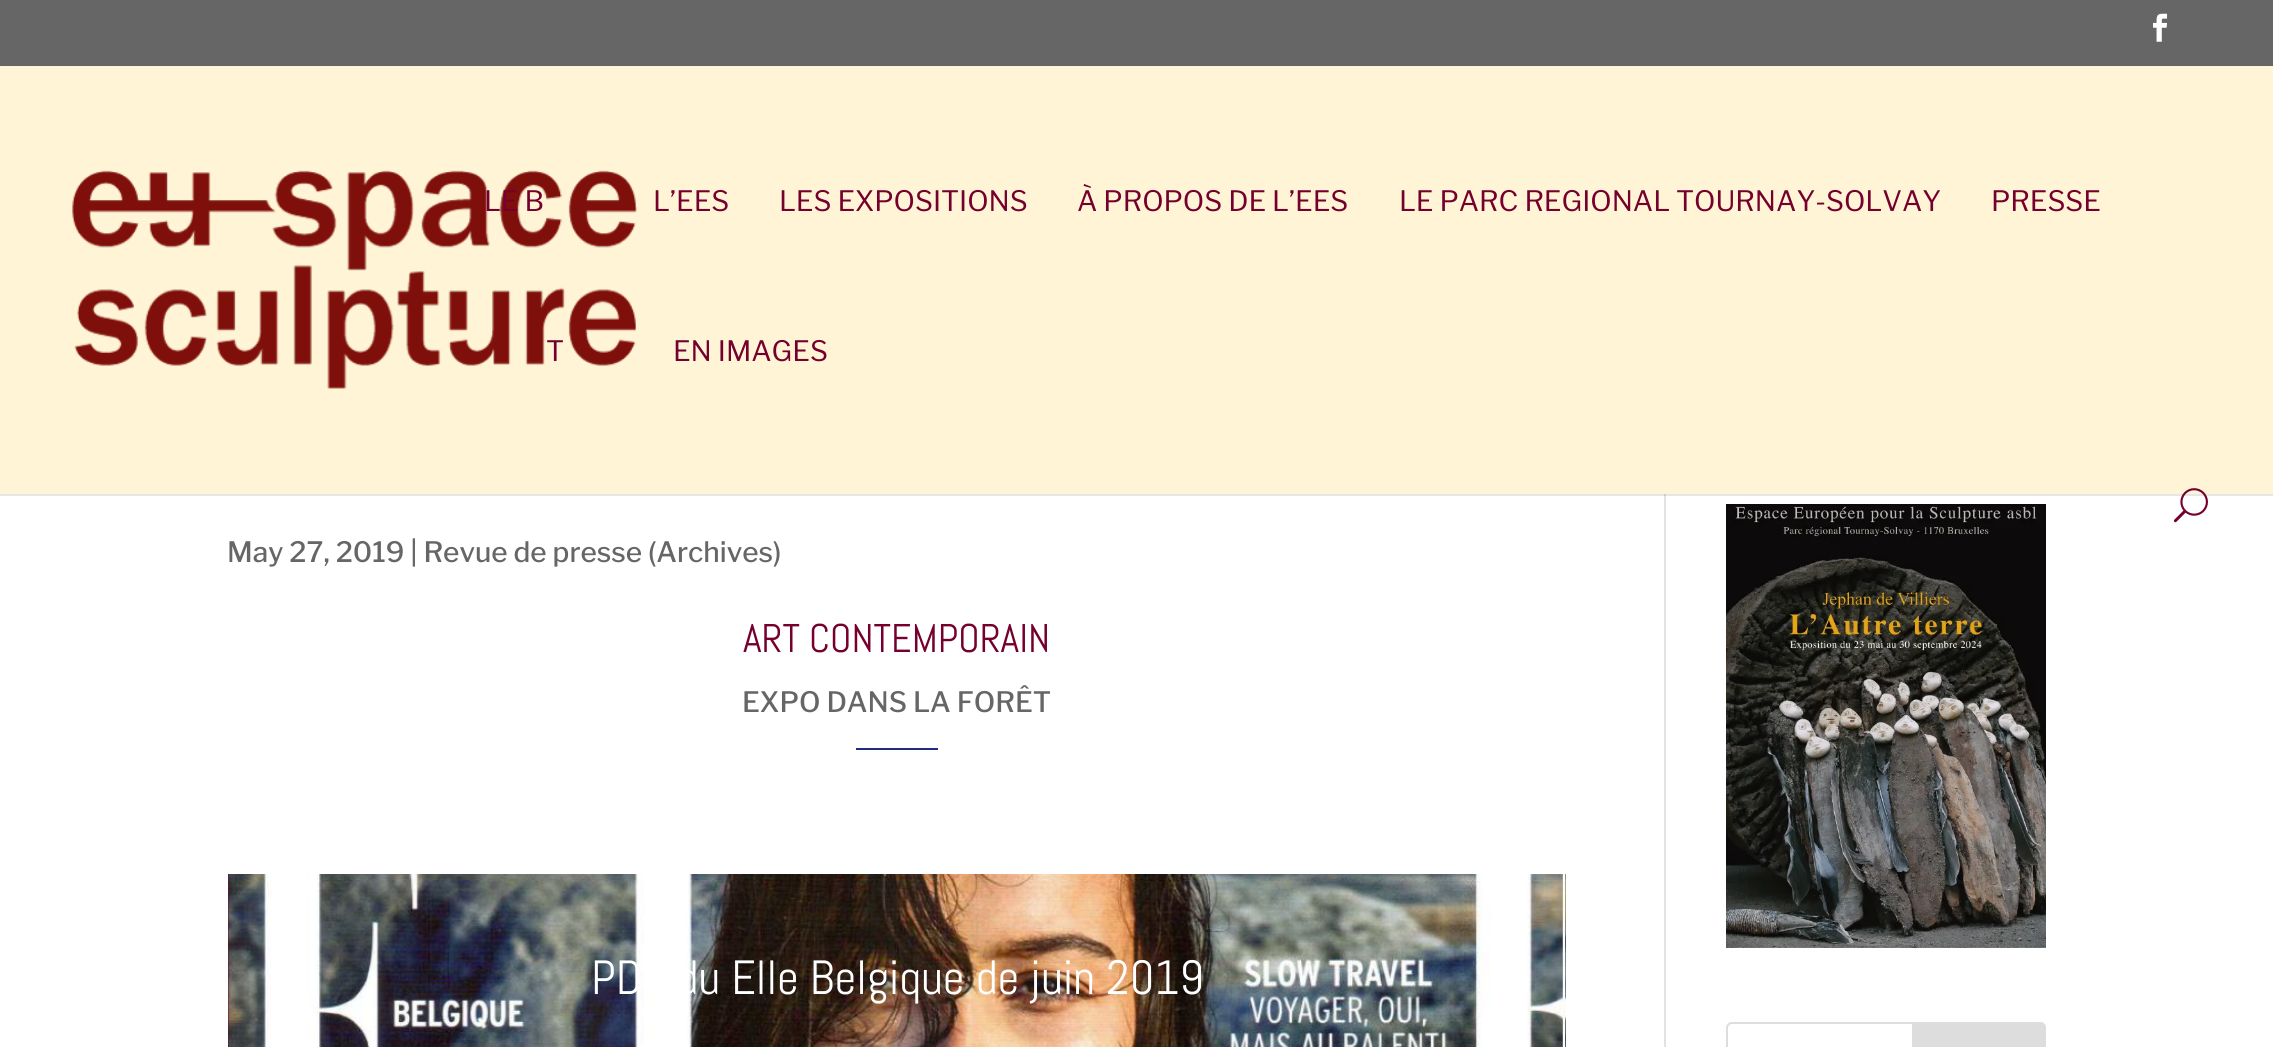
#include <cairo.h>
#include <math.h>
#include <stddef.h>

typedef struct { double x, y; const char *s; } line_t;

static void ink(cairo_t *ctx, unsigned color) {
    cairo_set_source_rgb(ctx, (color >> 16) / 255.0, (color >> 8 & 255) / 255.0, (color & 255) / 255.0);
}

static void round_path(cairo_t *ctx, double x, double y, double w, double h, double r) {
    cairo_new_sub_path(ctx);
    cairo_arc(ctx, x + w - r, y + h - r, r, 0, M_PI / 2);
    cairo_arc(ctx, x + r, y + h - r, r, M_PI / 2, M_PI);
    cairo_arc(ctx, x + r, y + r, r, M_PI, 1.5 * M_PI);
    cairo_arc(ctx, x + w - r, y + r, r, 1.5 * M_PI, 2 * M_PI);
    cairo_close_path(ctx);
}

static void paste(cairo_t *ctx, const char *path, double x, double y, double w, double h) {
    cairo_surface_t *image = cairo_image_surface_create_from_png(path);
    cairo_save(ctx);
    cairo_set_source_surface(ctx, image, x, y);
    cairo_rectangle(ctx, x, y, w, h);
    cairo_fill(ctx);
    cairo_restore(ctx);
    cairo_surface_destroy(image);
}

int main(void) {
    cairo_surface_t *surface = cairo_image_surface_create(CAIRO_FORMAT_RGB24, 2273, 1047);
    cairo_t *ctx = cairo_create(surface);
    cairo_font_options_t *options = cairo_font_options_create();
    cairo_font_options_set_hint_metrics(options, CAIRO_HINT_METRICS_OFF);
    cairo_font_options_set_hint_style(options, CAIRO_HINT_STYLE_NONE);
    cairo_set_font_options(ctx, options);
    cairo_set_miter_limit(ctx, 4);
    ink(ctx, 0xFFFFFF);
    cairo_paint(ctx);
    ink(ctx, 0x666666);
    cairo_rectangle(ctx, 0, 0, 2273, 66);
    cairo_fill(ctx);
    paste(ctx, "media/1.png", 2153, 13, 15, 29);
    ink(ctx, 0xE2E2E2);
    cairo_rectangle(ctx, 1664, 494, 2, 553);
    cairo_fill(ctx);
    cairo_set_source_rgba(ctx, 0, 0, 0, 0.1);
    cairo_rectangle(ctx, 0, 494, 2273, 2);
    cairo_fill(ctx);
    ink(ctx, 0xFFF4D6);
    cairo_rectangle(ctx, 0, 66, 2273, 428);
    cairo_fill(ctx);
    paste(ctx, "media/2.png", 72, 170, 565, 219);
    cairo_select_font_face(ctx, "Libre Franklin", CAIRO_FONT_SLANT_NORMAL, CAIRO_FONT_WEIGHT_NORMAL);
    cairo_set_font_size(ctx, 28);
    ink(ctx, 0x75002D);
    {
        static const line_t items[] = {
            {484, 211, "LE B"},
            {653, 211, "L’EES"},
            {779, 211, "LES EXPOSITIONS"},
            {1077, 211, "À PROPOS DE L’EES"},
            {1399, 211, "LE PARC REGIONAL TOURNAY-SOLVAY"},
            {1991, 211, "PRESSE"},
            {546, 361, "T"},
            {673, 361, "EN IMAGES"},
        };
        for (size_t i = 0; i < sizeof items / sizeof *items; i++) {
            cairo_move_to(ctx, items[i].x, items[i].y);
            cairo_show_text(ctx, items[i].s);
        }
    }
    paste(ctx, "media/3.png", 2173, 488, 35, 35);
    cairo_select_font_face(ctx, "Libre Franklin Medium", CAIRO_FONT_SLANT_NORMAL, CAIRO_FONT_WEIGHT_NORMAL);
    ink(ctx, 0x666666);
    cairo_move_to(ctx, 227, 562);
    cairo_show_text(ctx, "May 27, 2019 | Revue de presse (Archives)");
    cairo_select_font_face(ctx, "Abel", CAIRO_FONT_SLANT_NORMAL, CAIRO_FONT_WEIGHT_NORMAL);
    cairo_set_font_size(ctx, 40);
    ink(ctx, 0x75002D);
    cairo_move_to(ctx, 743, 652);
    cairo_show_text(ctx, "ART CONTEMPORAIN");
    cairo_select_font_face(ctx, "Libre Franklin Medium", CAIRO_FONT_SLANT_NORMAL, CAIRO_FONT_WEIGHT_NORMAL);
    cairo_set_font_size(ctx, 28);
    ink(ctx, 0x666666);
    cairo_move_to(ctx, 742, 712);
    cairo_show_text(ctx, "EXPO DANS LA FORÊT");
    ink(ctx, 0x1F2D7E);
    cairo_rectangle(ctx, 856, 748, 82, 2);
    cairo_fill(ctx);
    ink(ctx, 0x75002D);
    cairo_rectangle(ctx, 228, 874, 2, 173);
    cairo_fill(ctx);
    paste(ctx, "media/4.png", 228, 874, 1338, 173);
    cairo_select_font_face(ctx, "Abel", CAIRO_FONT_SLANT_NORMAL, CAIRO_FONT_WEIGHT_NORMAL);
    cairo_set_font_size(ctx, 48);
    ink(ctx, 0xFFFFFF);
    cairo_move_to(ctx, 591, 994);
    cairo_show_text(ctx, "PDF du Elle Belgique de juin 2019");
    paste(ctx, "media/5.png", 1726, 504, 320, 444);
    round_path(ctx, 1727, 1023, 318, 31, 5);
    ink(ctx, 0xDDDDDD);
    cairo_stroke(ctx);
    cairo_new_path(ctx);
    cairo_move_to(ctx, 1913, 1023);
    cairo_line_to(ctx, 2040, 1023);
    cairo_curve_to(ctx, 2043, 1023, 2045, 1025, 2045, 1028);
    cairo_line_to(ctx, 2045, 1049);
    cairo_curve_to(ctx, 2045, 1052, 2043, 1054, 2040, 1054);
    cairo_line_to(ctx, 1913, 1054);
    cairo_close_path(ctx);
    cairo_fill_preserve(ctx);
    cairo_stroke(ctx);
    cairo_surface_write_to_png(surface, "image.png");
    cairo_font_options_destroy(options);
    cairo_destroy(ctx);
    cairo_surface_destroy(surface);
    return 0;
}
